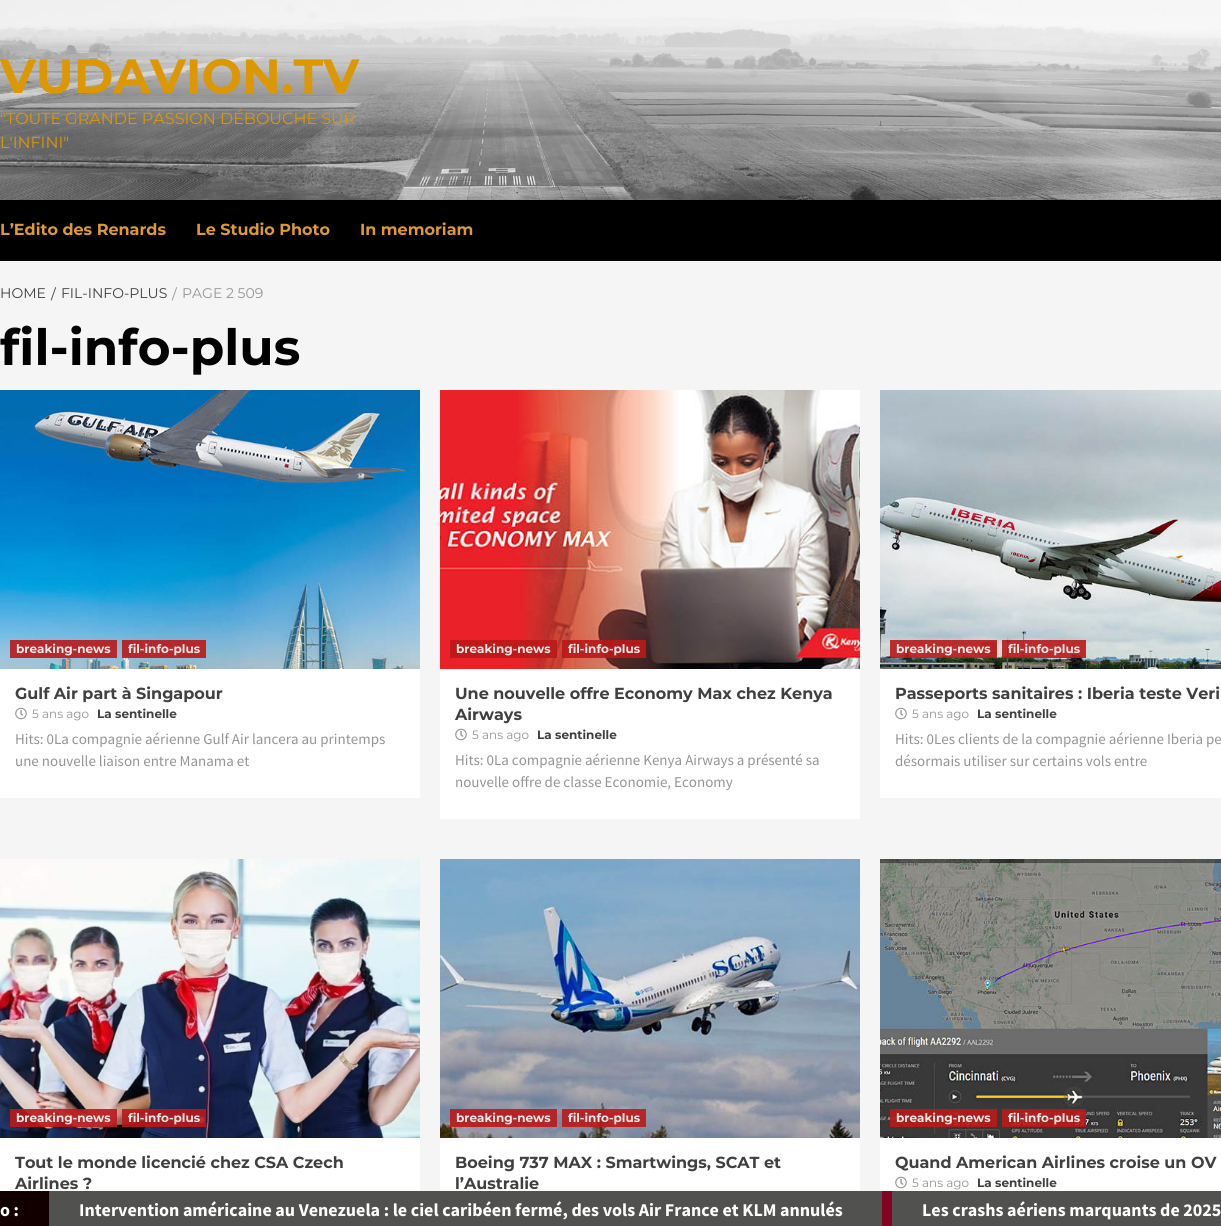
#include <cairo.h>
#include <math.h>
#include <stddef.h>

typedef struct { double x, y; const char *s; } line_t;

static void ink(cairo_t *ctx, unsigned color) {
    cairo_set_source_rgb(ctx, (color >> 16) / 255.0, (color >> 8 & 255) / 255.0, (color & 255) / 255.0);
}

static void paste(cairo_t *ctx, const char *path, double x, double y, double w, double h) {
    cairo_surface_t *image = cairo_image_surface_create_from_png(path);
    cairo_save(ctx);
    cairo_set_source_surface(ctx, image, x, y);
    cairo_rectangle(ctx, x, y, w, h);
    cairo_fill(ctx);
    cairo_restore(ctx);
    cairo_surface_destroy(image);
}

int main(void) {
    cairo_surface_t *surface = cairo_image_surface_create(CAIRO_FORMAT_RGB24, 1221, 1226);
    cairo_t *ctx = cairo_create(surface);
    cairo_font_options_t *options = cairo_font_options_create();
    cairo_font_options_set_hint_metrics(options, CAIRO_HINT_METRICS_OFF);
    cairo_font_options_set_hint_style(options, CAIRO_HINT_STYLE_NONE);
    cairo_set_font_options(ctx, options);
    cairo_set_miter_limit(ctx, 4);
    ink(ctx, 0xF5F5F5);
    cairo_paint(ctx);
    paste(ctx, "media/1.png", 0, 0, 1221, 200);
    cairo_select_font_face(ctx, "Montserrat", CAIRO_FONT_SLANT_NORMAL, CAIRO_FONT_WEIGHT_BOLD);
    cairo_set_font_size(ctx, 48);
    ink(ctx, 0xDD9700);
    cairo_move_to(ctx, 0, 93);
    cairo_show_text(ctx, "VUDAVION.TV");
    cairo_select_font_face(ctx, "Montserrat", CAIRO_FONT_SLANT_NORMAL, CAIRO_FONT_WEIGHT_NORMAL);
    cairo_set_font_size(ctx, 16);
    cairo_move_to(ctx, 0, 124);
    cairo_show_text(ctx, "\"TOUTE GRANDE PASSION DÉBOUCHE SUR");
    cairo_move_to(ctx, 0, 148);
    cairo_show_text(ctx, "L'INFINI\"");
    ink(ctx, 0x000000);
    cairo_rectangle(ctx, 0, 200, 1221, 61);
    cairo_fill(ctx);
    cairo_select_font_face(ctx, "Montserrat", CAIRO_FONT_SLANT_NORMAL, CAIRO_FONT_WEIGHT_BOLD);
    ink(ctx, 0xDD9933);
    {
        static const line_t items[] = {
            {0, 235, "L’Edito des Renards"},
            {196, 235, "Le Studio Photo"},
            {360, 235, "In memoriam"},
        };
        for (size_t i = 0; i < sizeof items / sizeof *items; i++) {
            cairo_move_to(ctx, items[i].x, items[i].y);
            cairo_show_text(ctx, items[i].s);
        }
    }
    cairo_select_font_face(ctx, "Montserrat", CAIRO_FONT_SLANT_NORMAL, CAIRO_FONT_WEIGHT_NORMAL);
    cairo_set_font_size(ctx, 14);
    ink(ctx, 0x404040);
    {
        static const line_t items[] = {
            {0, 298, "HOME"},
            {51, 299, "/"},
            {61, 298, "FIL-INFO-PLUS"},
        };
        for (size_t i = 0; i < sizeof items / sizeof *items; i++) {
            cairo_move_to(ctx, items[i].x, items[i].y);
            cairo_show_text(ctx, items[i].s);
        }
    }
    ink(ctx, 0x959595);
    cairo_move_to(ctx, 172, 299);
    cairo_show_text(ctx, "/");
    cairo_move_to(ctx, 182, 298);
    cairo_show_text(ctx, "PAGE 2 509");
    cairo_select_font_face(ctx, "Montserrat", CAIRO_FONT_SLANT_NORMAL, CAIRO_FONT_WEIGHT_BOLD);
    cairo_set_font_size(ctx, 50);
    ink(ctx, 0x000000);
    cairo_move_to(ctx, 0, 365);
    cairo_show_text(ctx, "fil-info-plus");
    ink(ctx, 0xFFFFFF);
    cairo_rectangle(ctx, 0, 669, 420, 129);
    cairo_fill(ctx);
    paste(ctx, "media/2.png", 0, 390, 420, 279);
    cairo_set_source_rgba(ctx, 0.733, 0.098, 0.098, 0.9);
    cairo_rectangle(ctx, 10, 640, 107, 18);
    cairo_fill(ctx);
    cairo_set_font_size(ctx, 12);
    ink(ctx, 0xF8EAEA);
    cairo_move_to(ctx, 16, 653);
    cairo_show_text(ctx, "breaking-news");
    cairo_set_source_rgba(ctx, 0.733, 0.098, 0.098, 0.9);
    cairo_rectangle(ctx, 122, 640, 84, 18);
    cairo_fill(ctx);
    ink(ctx, 0xF8EAEA);
    cairo_move_to(ctx, 128, 653);
    cairo_show_text(ctx, "fil-info-plus");
    cairo_set_font_size(ctx, 16);
    ink(ctx, 0x404040);
    cairo_move_to(ctx, 15, 699);
    cairo_show_text(ctx, "Gulf Air part à Singapour");
    paste(ctx, "media/3.png", 15, 707, 12, 13);
    cairo_select_font_face(ctx, "Montserrat", CAIRO_FONT_SLANT_NORMAL, CAIRO_FONT_WEIGHT_NORMAL);
    cairo_set_font_size(ctx, 12);
    ink(ctx, 0x959595);
    cairo_move_to(ctx, 32, 718);
    cairo_show_text(ctx, "5 ans ago");
    cairo_select_font_face(ctx, "Montserrat", CAIRO_FONT_SLANT_NORMAL, CAIRO_FONT_WEIGHT_BOLD);
    ink(ctx, 0x404040);
    cairo_move_to(ctx, 97, 718);
    cairo_show_text(ctx, "La sentinelle");
    cairo_select_font_face(ctx, "Source Sans Pro", CAIRO_FONT_SLANT_NORMAL, CAIRO_FONT_WEIGHT_NORMAL);
    cairo_set_font_size(ctx, 15);
    ink(ctx, 0x959595);
    cairo_move_to(ctx, 15, 744);
    cairo_show_text(ctx, "Hits: 0La compagnie aérienne Gulf Air lancera au printemps");
    cairo_move_to(ctx, 15, 766);
    cairo_show_text(ctx, "une nouvelle liaison entre Manama et");
    ink(ctx, 0xFFFFFF);
    cairo_rectangle(ctx, 440, 669, 420, 150);
    cairo_fill(ctx);
    paste(ctx, "media/4.png", 440, 390, 420, 279);
    cairo_set_source_rgba(ctx, 0.733, 0.098, 0.098, 0.9);
    cairo_rectangle(ctx, 450, 640, 107, 18);
    cairo_fill(ctx);
    cairo_select_font_face(ctx, "Montserrat", CAIRO_FONT_SLANT_NORMAL, CAIRO_FONT_WEIGHT_BOLD);
    cairo_set_font_size(ctx, 12);
    ink(ctx, 0xF8EAEA);
    cairo_move_to(ctx, 456, 653);
    cairo_show_text(ctx, "breaking-news");
    cairo_set_source_rgba(ctx, 0.733, 0.098, 0.098, 0.9);
    cairo_rectangle(ctx, 562, 640, 84, 18);
    cairo_fill(ctx);
    ink(ctx, 0xF8EAEA);
    cairo_move_to(ctx, 568, 653);
    cairo_show_text(ctx, "fil-info-plus");
    cairo_set_font_size(ctx, 16);
    ink(ctx, 0x404040);
    cairo_move_to(ctx, 455, 699);
    cairo_show_text(ctx, "Une nouvelle offre Economy Max chez Kenya");
    cairo_move_to(ctx, 455, 720);
    cairo_show_text(ctx, "Airways");
    paste(ctx, "media/3.png", 455, 728, 12, 13);
    cairo_select_font_face(ctx, "Montserrat", CAIRO_FONT_SLANT_NORMAL, CAIRO_FONT_WEIGHT_NORMAL);
    cairo_set_font_size(ctx, 12);
    ink(ctx, 0x959595);
    cairo_move_to(ctx, 472, 739);
    cairo_show_text(ctx, "5 ans ago");
    cairo_select_font_face(ctx, "Montserrat", CAIRO_FONT_SLANT_NORMAL, CAIRO_FONT_WEIGHT_BOLD);
    ink(ctx, 0x404040);
    cairo_move_to(ctx, 537, 739);
    cairo_show_text(ctx, "La sentinelle");
    cairo_select_font_face(ctx, "Source Sans Pro", CAIRO_FONT_SLANT_NORMAL, CAIRO_FONT_WEIGHT_NORMAL);
    cairo_set_font_size(ctx, 15);
    ink(ctx, 0x959595);
    cairo_move_to(ctx, 455, 765);
    cairo_show_text(ctx, "Hits: 0La compagnie aérienne Kenya Airways a présenté sa");
    cairo_move_to(ctx, 455, 787);
    cairo_show_text(ctx, "nouvelle offre de classe Economie, Economy");
    ink(ctx, 0xFFFFFF);
    cairo_rectangle(ctx, 880, 669, 341, 129);
    cairo_fill(ctx);
    paste(ctx, "media/5.png", 880, 390, 341, 279);
    cairo_set_source_rgba(ctx, 0.733, 0.098, 0.098, 0.9);
    cairo_rectangle(ctx, 890, 640, 107, 18);
    cairo_fill(ctx);
    cairo_select_font_face(ctx, "Montserrat", CAIRO_FONT_SLANT_NORMAL, CAIRO_FONT_WEIGHT_BOLD);
    cairo_set_font_size(ctx, 12);
    ink(ctx, 0xF8EAEA);
    cairo_move_to(ctx, 896, 653);
    cairo_show_text(ctx, "breaking-news");
    cairo_set_source_rgba(ctx, 0.733, 0.098, 0.098, 0.9);
    cairo_rectangle(ctx, 1002, 640, 84, 18);
    cairo_fill(ctx);
    ink(ctx, 0xF8EAEA);
    cairo_move_to(ctx, 1008, 653);
    cairo_show_text(ctx, "fil-info-plus");
    cairo_set_font_size(ctx, 16);
    ink(ctx, 0x404040);
    cairo_move_to(ctx, 895, 699);
    cairo_show_text(ctx, "Passeports sanitaires : Iberia teste Veri");
    paste(ctx, "media/3.png", 895, 707, 12, 13);
    cairo_select_font_face(ctx, "Montserrat", CAIRO_FONT_SLANT_NORMAL, CAIRO_FONT_WEIGHT_NORMAL);
    cairo_set_font_size(ctx, 12);
    ink(ctx, 0x959595);
    cairo_move_to(ctx, 912, 718);
    cairo_show_text(ctx, "5 ans ago");
    cairo_select_font_face(ctx, "Montserrat", CAIRO_FONT_SLANT_NORMAL, CAIRO_FONT_WEIGHT_BOLD);
    ink(ctx, 0x404040);
    cairo_move_to(ctx, 977, 718);
    cairo_show_text(ctx, "La sentinelle");
    cairo_select_font_face(ctx, "Source Sans Pro", CAIRO_FONT_SLANT_NORMAL, CAIRO_FONT_WEIGHT_NORMAL);
    cairo_set_font_size(ctx, 15);
    ink(ctx, 0x959595);
    cairo_move_to(ctx, 895, 744);
    cairo_show_text(ctx, "Hits: 0Les clients de la compagnie aérienne Iberia pe");
    cairo_move_to(ctx, 895, 766);
    cairo_show_text(ctx, "désormais utiliser sur certains vols entre");
    ink(ctx, 0xFFFFFF);
    cairo_rectangle(ctx, 0, 1138, 420, 53);
    cairo_fill(ctx);
    paste(ctx, "media/6.png", 0, 859, 420, 279);
    cairo_set_source_rgba(ctx, 0.733, 0.098, 0.098, 0.9);
    cairo_rectangle(ctx, 10, 1109, 107, 18);
    cairo_fill(ctx);
    cairo_select_font_face(ctx, "Montserrat", CAIRO_FONT_SLANT_NORMAL, CAIRO_FONT_WEIGHT_BOLD);
    cairo_set_font_size(ctx, 12);
    ink(ctx, 0xF8EAEA);
    cairo_move_to(ctx, 16, 1122);
    cairo_show_text(ctx, "breaking-news");
    cairo_set_source_rgba(ctx, 0.733, 0.098, 0.098, 0.9);
    cairo_rectangle(ctx, 122, 1109, 84, 18);
    cairo_fill(ctx);
    ink(ctx, 0xF8EAEA);
    cairo_move_to(ctx, 128, 1122);
    cairo_show_text(ctx, "fil-info-plus");
    cairo_set_font_size(ctx, 16);
    ink(ctx, 0x404040);
    cairo_move_to(ctx, 15, 1168);
    cairo_show_text(ctx, "Tout le monde licencié chez CSA Czech");
    cairo_move_to(ctx, 15, 1189);
    cairo_show_text(ctx, "Airlines ?");
    ink(ctx, 0xFFFFFF);
    cairo_rectangle(ctx, 440, 1138, 420, 53);
    cairo_fill(ctx);
    paste(ctx, "media/7.png", 440, 859, 420, 279);
    cairo_set_source_rgba(ctx, 0.733, 0.098, 0.098, 0.9);
    cairo_rectangle(ctx, 450, 1109, 107, 18);
    cairo_fill(ctx);
    cairo_set_font_size(ctx, 12);
    ink(ctx, 0xF8EAEA);
    cairo_move_to(ctx, 456, 1122);
    cairo_show_text(ctx, "breaking-news");
    cairo_set_source_rgba(ctx, 0.733, 0.098, 0.098, 0.9);
    cairo_rectangle(ctx, 562, 1109, 84, 18);
    cairo_fill(ctx);
    ink(ctx, 0xF8EAEA);
    cairo_move_to(ctx, 568, 1122);
    cairo_show_text(ctx, "fil-info-plus");
    cairo_set_font_size(ctx, 16);
    ink(ctx, 0x404040);
    cairo_move_to(ctx, 455, 1168);
    cairo_show_text(ctx, "Boeing 737 MAX : Smartwings, SCAT et");
    cairo_move_to(ctx, 455, 1189);
    cairo_show_text(ctx, "l’Australie");
    ink(ctx, 0xFFFFFF);
    cairo_rectangle(ctx, 880, 1138, 341, 53);
    cairo_fill(ctx);
    paste(ctx, "media/8.png", 880, 859, 341, 279);
    cairo_set_source_rgba(ctx, 0.733, 0.098, 0.098, 0.9);
    cairo_rectangle(ctx, 890, 1109, 107, 18);
    cairo_fill(ctx);
    cairo_set_font_size(ctx, 12);
    ink(ctx, 0xF8EAEA);
    cairo_move_to(ctx, 896, 1122);
    cairo_show_text(ctx, "breaking-news");
    cairo_set_source_rgba(ctx, 0.733, 0.098, 0.098, 0.9);
    cairo_rectangle(ctx, 1002, 1109, 84, 18);
    cairo_fill(ctx);
    ink(ctx, 0xF8EAEA);
    cairo_move_to(ctx, 1008, 1122);
    cairo_show_text(ctx, "fil-info-plus");
    cairo_set_font_size(ctx, 16);
    ink(ctx, 0x404040);
    cairo_move_to(ctx, 895, 1168);
    cairo_show_text(ctx, "Quand American Airlines croise un OV");
    paste(ctx, "media/3.png", 895, 1176, 12, 13);
    cairo_select_font_face(ctx, "Montserrat", CAIRO_FONT_SLANT_NORMAL, CAIRO_FONT_WEIGHT_NORMAL);
    cairo_set_font_size(ctx, 12);
    ink(ctx, 0x959595);
    cairo_move_to(ctx, 912, 1187);
    cairo_show_text(ctx, "5 ans ago");
    cairo_select_font_face(ctx, "Montserrat", CAIRO_FONT_SLANT_NORMAL, CAIRO_FONT_WEIGHT_BOLD);
    ink(ctx, 0x404040);
    cairo_move_to(ctx, 977, 1187);
    cairo_show_text(ctx, "La sentinelle");
    ink(ctx, 0x51514F);
    cairo_rectangle(ctx, 49, 1191, 1172, 35);
    cairo_fill(ctx);
    ink(ctx, 0x120000);
    cairo_rectangle(ctx, 0, 1191, 49, 35);
    cairo_fill(ctx);
    cairo_select_font_face(ctx, "Source Sans Pro", CAIRO_FONT_SLANT_NORMAL, CAIRO_FONT_WEIGHT_BOLD);
    cairo_set_font_size(ctx, 18);
    ink(ctx, 0xFFFFFF);
    cairo_move_to(ctx, 0, 1216);
    cairo_show_text(ctx, "o :");
    ink(ctx, 0x840222);
    cairo_rectangle(ctx, 882, 1191, 10, 35);
    cairo_fill(ctx);
    ink(ctx, 0xFFFFFF);
    cairo_move_to(ctx, 79, 1216);
    cairo_show_text(ctx, "Intervention américaine au Venezuela : le ciel caribéen fermé, des vols Air France et KLM annulés");
    cairo_move_to(ctx, 922, 1216);
    cairo_show_text(ctx, "Les crashs aériens marquants de 2025");
    cairo_surface_write_to_png(surface, "image.png");
    cairo_font_options_destroy(options);
    cairo_destroy(ctx);
    cairo_surface_destroy(surface);
    return 0;
}
